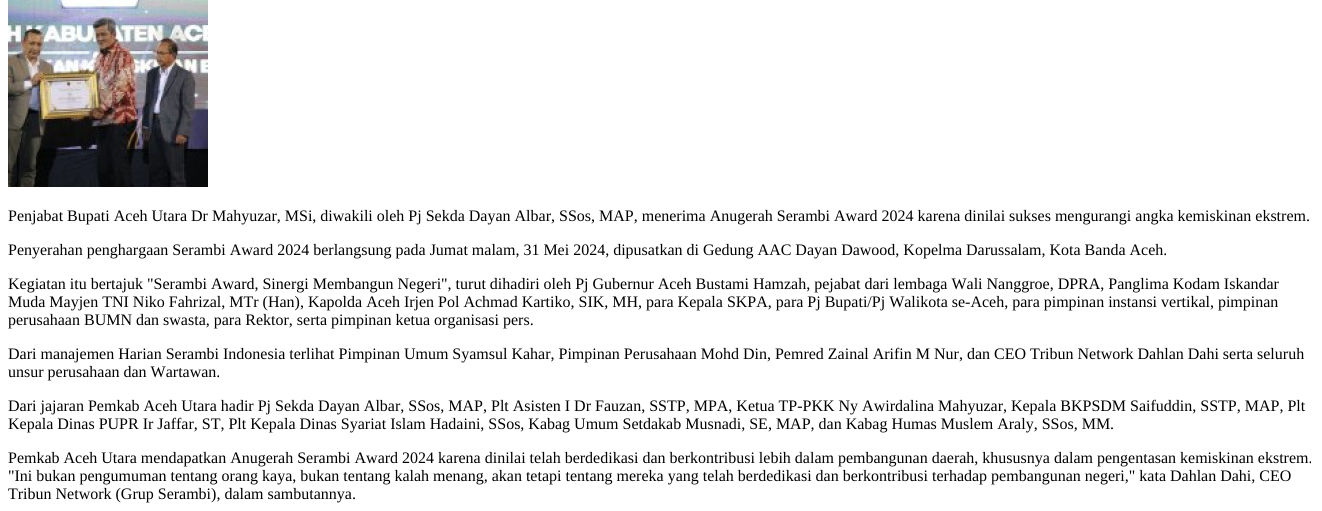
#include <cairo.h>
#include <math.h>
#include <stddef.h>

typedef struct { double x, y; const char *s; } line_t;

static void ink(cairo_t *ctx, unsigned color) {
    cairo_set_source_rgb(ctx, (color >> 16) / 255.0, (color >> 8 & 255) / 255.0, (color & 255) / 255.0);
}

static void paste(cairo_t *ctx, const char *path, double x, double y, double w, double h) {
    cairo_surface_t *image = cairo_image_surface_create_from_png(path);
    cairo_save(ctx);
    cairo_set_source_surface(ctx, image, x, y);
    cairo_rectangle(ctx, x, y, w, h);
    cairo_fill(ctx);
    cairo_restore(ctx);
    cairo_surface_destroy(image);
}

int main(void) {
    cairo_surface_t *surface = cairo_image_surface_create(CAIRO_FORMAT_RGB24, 1322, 511);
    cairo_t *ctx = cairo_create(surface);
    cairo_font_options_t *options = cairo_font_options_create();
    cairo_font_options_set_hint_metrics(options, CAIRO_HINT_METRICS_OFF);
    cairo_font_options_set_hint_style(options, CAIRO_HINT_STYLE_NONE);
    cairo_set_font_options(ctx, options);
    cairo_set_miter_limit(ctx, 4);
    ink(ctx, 0xFFFFFF);
    cairo_paint(ctx);
    paste(ctx, "media/1.png", 8, 0, 200, 187);
    cairo_select_font_face(ctx, "Liberation Serif", CAIRO_FONT_SLANT_NORMAL, CAIRO_FONT_WEIGHT_NORMAL);
    cairo_set_font_size(ctx, 16);
    ink(ctx, 0x000000);
    {
        static const line_t items[] = {
            {8, 221, "Penjabat Bupati Aceh Utara Dr Mahyuzar, MSi, diwakili oleh Pj Sekda Dayan Albar, SSos, MAP, menerima Anugerah Serambi Award 2024 karena dinilai sukses mengurangi angka kemiskinan ekstrem."},
            {8, 255, "Penyerahan penghargaan Serambi Award 2024 berlangsung pada Jumat malam, 31 Mei 2024, dipusatkan di Gedung AAC Dayan Dawood, Kopelma Darussalam, Kota Banda Aceh."},
            {8, 289, "Kegiatan itu bertajuk \"Serambi Award, Sinergi Membangun Negeri\", turut dihadiri oleh Pj Gubernur Aceh Bustami Hamzah, pejabat dari lembaga Wali Nanggroe, DPRA, Panglima Kodam Iskandar"},
            {8, 307, "Muda Mayjen TNI Niko Fahrizal, MTr (Han), Kapolda Aceh Irjen Pol Achmad Kartiko, SIK, MH, para Kepala SKPA, para Pj Bupati/Pj Walikota se-Aceh, para pimpinan instansi vertikal, pimpinan"},
            {8, 325, "perusahaan BUMN dan swasta, para Rektor, serta pimpinan ketua organisasi pers."},
            {8, 359, "Dari manajemen Harian Serambi Indonesia terlihat Pimpinan Umum Syamsul Kahar, Pimpinan Perusahaan Mohd Din, Pemred Zainal Arifin M Nur, dan CEO Tribun Network Dahlan Dahi serta seluruh"},
            {8, 377, "unsur perusahaan dan Wartawan."},
            {8, 411, "Dari jajaran Pemkab Aceh Utara hadir Pj Sekda Dayan Albar, SSos, MAP, Plt Asisten I Dr Fauzan, SSTP, MPA, Ketua TP-PKK Ny Awirdalina Mahyuzar, Kepala BKPSDM Saifuddin, SSTP, MAP, Plt"},
            {8, 429, "Kepala Dinas PUPR Ir Jaffar, ST, Plt Kepala Dinas Syariat Islam Hadaini, SSos, Kabag Umum Setdakab Musnadi, SE, MAP, dan Kabag Humas Muslem Araly, SSos, MM."},
            {8, 463, "Pemkab Aceh Utara mendapatkan Anugerah Serambi Award 2024 karena dinilai telah berdedikasi dan berkontribusi lebih dalam pembangunan daerah, khususnya dalam pengentasan kemiskinan ekstrem."},
            {8, 481, "\"Ini bukan pengumuman tentang orang kaya, bukan tentang kalah menang, akan tetapi tentang mereka yang telah berdedikasi dan berkontribusi terhadap pembangunan negeri,\" kata Dahlan Dahi, CEO"},
            {8, 499, "Tribun Network (Grup Serambi), dalam sambutannya."},
        };
        for (size_t i = 0; i < sizeof items / sizeof *items; i++) {
            cairo_move_to(ctx, items[i].x, items[i].y);
            cairo_show_text(ctx, items[i].s);
        }
    }
    cairo_surface_write_to_png(surface, "image.png");
    cairo_font_options_destroy(options);
    cairo_destroy(ctx);
    cairo_surface_destroy(surface);
    return 0;
}
